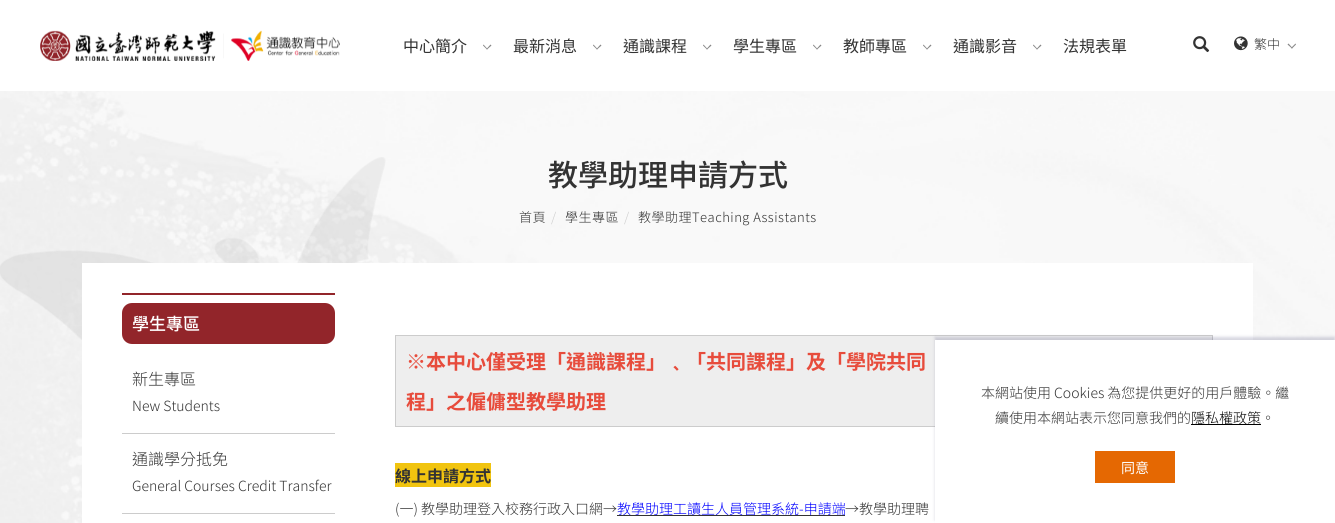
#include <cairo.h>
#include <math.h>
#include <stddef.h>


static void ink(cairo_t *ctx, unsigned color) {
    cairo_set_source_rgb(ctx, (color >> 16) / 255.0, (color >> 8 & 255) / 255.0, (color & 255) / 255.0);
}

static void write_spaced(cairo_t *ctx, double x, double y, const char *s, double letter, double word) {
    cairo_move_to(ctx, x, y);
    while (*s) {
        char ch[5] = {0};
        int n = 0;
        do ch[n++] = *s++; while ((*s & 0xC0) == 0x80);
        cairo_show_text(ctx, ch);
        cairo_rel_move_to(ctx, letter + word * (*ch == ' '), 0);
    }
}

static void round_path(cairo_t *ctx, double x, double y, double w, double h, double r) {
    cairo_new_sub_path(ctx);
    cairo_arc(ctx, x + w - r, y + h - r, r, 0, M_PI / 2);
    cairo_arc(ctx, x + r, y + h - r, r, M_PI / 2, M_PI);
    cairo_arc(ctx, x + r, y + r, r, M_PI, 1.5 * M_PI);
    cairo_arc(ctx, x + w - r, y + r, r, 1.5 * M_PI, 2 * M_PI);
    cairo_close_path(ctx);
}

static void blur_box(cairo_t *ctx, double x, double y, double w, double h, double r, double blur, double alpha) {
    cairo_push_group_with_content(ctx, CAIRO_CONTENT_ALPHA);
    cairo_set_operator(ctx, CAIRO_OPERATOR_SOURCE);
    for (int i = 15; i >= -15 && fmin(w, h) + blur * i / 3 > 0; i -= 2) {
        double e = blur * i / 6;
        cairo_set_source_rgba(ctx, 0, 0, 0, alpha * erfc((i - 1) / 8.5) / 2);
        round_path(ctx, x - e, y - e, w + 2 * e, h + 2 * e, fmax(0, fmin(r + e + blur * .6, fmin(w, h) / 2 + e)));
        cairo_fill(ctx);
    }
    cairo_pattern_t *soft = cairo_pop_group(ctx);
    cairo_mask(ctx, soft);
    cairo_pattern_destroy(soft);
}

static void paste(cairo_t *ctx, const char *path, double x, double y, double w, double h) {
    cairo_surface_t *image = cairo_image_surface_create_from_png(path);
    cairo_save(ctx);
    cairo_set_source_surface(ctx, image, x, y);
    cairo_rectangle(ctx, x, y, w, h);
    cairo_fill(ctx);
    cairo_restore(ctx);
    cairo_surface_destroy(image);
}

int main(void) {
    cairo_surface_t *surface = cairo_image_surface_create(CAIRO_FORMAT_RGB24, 1335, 523);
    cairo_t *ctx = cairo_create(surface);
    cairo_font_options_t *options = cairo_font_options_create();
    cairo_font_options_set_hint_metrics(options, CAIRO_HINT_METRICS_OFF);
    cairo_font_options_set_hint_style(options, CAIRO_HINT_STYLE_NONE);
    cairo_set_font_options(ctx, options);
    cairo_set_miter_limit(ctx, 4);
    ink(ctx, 0xFFFFFF);
    cairo_paint(ctx);
    paste(ctx, "media/1.png", 40, 30, 300, 31);
    cairo_select_font_face(ctx, "Noto Sans TC", CAIRO_FONT_SLANT_NORMAL, CAIRO_FONT_WEIGHT_NORMAL);
    cairo_set_font_size(ctx, 16);
    ink(ctx, 0x333333);
    cairo_move_to(ctx, 403, 52);
    cairo_show_text(ctx, "中心簡介");
    ink(ctx, 0x888888);
    cairo_new_path(ctx);
    cairo_move_to(ctx, 491.5, 45.5);
    cairo_line_to(ctx, 487, 49.5);
    cairo_line_to(ctx, 486.5, 49);
    cairo_line_to(ctx, 490.5, 44.5);
    cairo_close_path(ctx);
    cairo_fill(ctx);
    cairo_new_path(ctx);
    cairo_move_to(ctx, 487.5, 49);
    cairo_line_to(ctx, 487, 49.5);
    cairo_line_to(ctx, 483, 45.5);
    cairo_line_to(ctx, 483.5, 44.5);
    cairo_close_path(ctx);
    cairo_fill(ctx);
    ink(ctx, 0x333333);
    cairo_move_to(ctx, 513, 52);
    cairo_show_text(ctx, "最新消息");
    ink(ctx, 0x888888);
    cairo_new_path(ctx);
    cairo_move_to(ctx, 601.5, 45.5);
    cairo_line_to(ctx, 597, 49.5);
    cairo_line_to(ctx, 596.5, 49);
    cairo_line_to(ctx, 600.5, 44.5);
    cairo_close_path(ctx);
    cairo_fill(ctx);
    cairo_new_path(ctx);
    cairo_move_to(ctx, 597.5, 49);
    cairo_line_to(ctx, 597, 49.5);
    cairo_line_to(ctx, 593, 45.5);
    cairo_line_to(ctx, 593.5, 44.5);
    cairo_close_path(ctx);
    cairo_fill(ctx);
    ink(ctx, 0x333333);
    cairo_move_to(ctx, 623, 52);
    cairo_show_text(ctx, "通識課程");
    ink(ctx, 0x888888);
    cairo_new_path(ctx);
    cairo_move_to(ctx, 711.5, 45.5);
    cairo_line_to(ctx, 707, 49.5);
    cairo_line_to(ctx, 706.5, 49);
    cairo_line_to(ctx, 710.5, 44.5);
    cairo_close_path(ctx);
    cairo_fill(ctx);
    cairo_new_path(ctx);
    cairo_move_to(ctx, 707.5, 49);
    cairo_line_to(ctx, 707, 49.5);
    cairo_line_to(ctx, 703, 45.5);
    cairo_line_to(ctx, 703.5, 44.5);
    cairo_close_path(ctx);
    cairo_fill(ctx);
    ink(ctx, 0x333333);
    cairo_move_to(ctx, 733, 52);
    cairo_show_text(ctx, "學生專區");
    ink(ctx, 0x888888);
    cairo_new_path(ctx);
    cairo_move_to(ctx, 821.5, 45.5);
    cairo_line_to(ctx, 817, 49.5);
    cairo_line_to(ctx, 816.5, 49);
    cairo_line_to(ctx, 820.5, 44.5);
    cairo_close_path(ctx);
    cairo_fill(ctx);
    cairo_new_path(ctx);
    cairo_move_to(ctx, 817.5, 49);
    cairo_line_to(ctx, 817, 49.5);
    cairo_line_to(ctx, 813, 45.5);
    cairo_line_to(ctx, 813.5, 44.5);
    cairo_close_path(ctx);
    cairo_fill(ctx);
    ink(ctx, 0x333333);
    cairo_move_to(ctx, 843, 52);
    cairo_show_text(ctx, "教師專區");
    ink(ctx, 0x888888);
    cairo_new_path(ctx);
    cairo_move_to(ctx, 931.5, 45.5);
    cairo_line_to(ctx, 927, 49.5);
    cairo_line_to(ctx, 926.5, 49);
    cairo_line_to(ctx, 930.5, 44.5);
    cairo_close_path(ctx);
    cairo_fill(ctx);
    cairo_new_path(ctx);
    cairo_move_to(ctx, 927.5, 49);
    cairo_line_to(ctx, 927, 49.5);
    cairo_line_to(ctx, 923, 45.5);
    cairo_line_to(ctx, 923.5, 44.5);
    cairo_close_path(ctx);
    cairo_fill(ctx);
    ink(ctx, 0x333333);
    cairo_move_to(ctx, 953, 52);
    cairo_show_text(ctx, "通識影音");
    ink(ctx, 0x888888);
    cairo_new_path(ctx);
    cairo_move_to(ctx, 1041.5, 45.5);
    cairo_line_to(ctx, 1037, 49.5);
    cairo_line_to(ctx, 1036.5, 49);
    cairo_line_to(ctx, 1040.5, 44.5);
    cairo_close_path(ctx);
    cairo_fill(ctx);
    cairo_new_path(ctx);
    cairo_move_to(ctx, 1037.5, 49);
    cairo_line_to(ctx, 1037, 49.5);
    cairo_line_to(ctx, 1033, 45.5);
    cairo_line_to(ctx, 1033.5, 44.5);
    cairo_close_path(ctx);
    cairo_fill(ctx);
    ink(ctx, 0x333333);
    cairo_move_to(ctx, 1063, 52);
    cairo_show_text(ctx, "法規表單");
    paste(ctx, "media/2.png", 1193, 36, 17, 17);
    paste(ctx, "media/3.png", 1234, 36, 14, 15);
    cairo_select_font_face(ctx, "Noto Sans TC Light", CAIRO_FONT_SLANT_NORMAL, CAIRO_FONT_WEIGHT_NORMAL);
    cairo_set_font_size(ctx, 13);
    cairo_move_to(ctx, 1254, 49);
    cairo_show_text(ctx, "繁中");
    ink(ctx, 0x888888);
    cairo_new_path(ctx);
    cairo_move_to(ctx, 1296, 44.5);
    cairo_line_to(ctx, 1292, 48.5);
    cairo_line_to(ctx, 1291, 48);
    cairo_line_to(ctx, 1295.5, 43.5);
    cairo_close_path(ctx);
    cairo_fill(ctx);
    cairo_new_path(ctx);
    cairo_move_to(ctx, 1292.5, 48);
    cairo_line_to(ctx, 1292, 48.5);
    cairo_line_to(ctx, 1287.5, 44.5);
    cairo_line_to(ctx, 1288.5, 43.5);
    cairo_close_path(ctx);
    cairo_fill(ctx);
    paste(ctx, "media/4.png", 0, 91, 1335, 432);
    paste(ctx, "media/5.png", 0, 157, 386, 183);
    cairo_select_font_face(ctx, "Noto Sans TC Medium", CAIRO_FONT_SLANT_NORMAL, CAIRO_FONT_WEIGHT_NORMAL);
    cairo_set_font_size(ctx, 30);
    ink(ctx, 0x333333);
    cairo_move_to(ctx, 548, 186);
    cairo_show_text(ctx, "教學助理申請方式");
    cairo_select_font_face(ctx, "Noto Sans TC Light", CAIRO_FONT_SLANT_NORMAL, CAIRO_FONT_WEIGHT_NORMAL);
    cairo_set_font_size(ctx, 13);
    write_spaced(ctx, 519, 222, "首頁", 0.5, 0);
    ink(ctx, 0xCCCCCC);
    write_spaced(ctx, 551, 222, "/", 0.5, 0);
    ink(ctx, 0x333333);
    write_spaced(ctx, 565, 222, "學生專區", 0.5, 0);
    ink(ctx, 0xCCCCCC);
    write_spaced(ctx, 624, 222, "/", 0.5, 0);
    ink(ctx, 0x333333);
    write_spaced(ctx, 638, 222, "教學助理Teaching Assistants", 0.5, 0);
    ink(ctx, 0xFFFFFF);
    cairo_rectangle(ctx, 82, 263, 1171, 260);
    cairo_fill(ctx);
    ink(ctx, 0x92252A);
    round_path(ctx, 122, 303, 213, 41, 10);
    cairo_fill(ctx);
    cairo_rectangle(ctx, 122, 293, 213, 2);
    cairo_fill(ctx);
    cairo_select_font_face(ctx, "Noto Sans TC Medium", CAIRO_FONT_SLANT_NORMAL, CAIRO_FONT_WEIGHT_NORMAL);
    cairo_set_font_size(ctx, 17);
    ink(ctx, 0xFFFFFF);
    cairo_move_to(ctx, 132, 330);
    cairo_show_text(ctx, "學生專區");
    ink(ctx, 0xCCCCCC);
    cairo_rectangle(ctx, 122, 433, 213, 1);
    cairo_fill(ctx);
    cairo_select_font_face(ctx, "Noto Sans TC Light", CAIRO_FONT_SLANT_NORMAL, CAIRO_FONT_WEIGHT_NORMAL);
    cairo_set_font_size(ctx, 16);
    ink(ctx, 0x333333);
    cairo_move_to(ctx, 132, 385);
    cairo_show_text(ctx, "新生專區");
    cairo_set_font_size(ctx, 14);
    cairo_move_to(ctx, 132, 411);
    cairo_show_text(ctx, "New Students");
    ink(ctx, 0xCCCCCC);
    cairo_rectangle(ctx, 122, 513, 213, 1);
    cairo_fill(ctx);
    cairo_set_font_size(ctx, 16);
    ink(ctx, 0x333333);
    cairo_move_to(ctx, 132, 465);
    cairo_show_text(ctx, "通識學分抵免");
    cairo_set_font_size(ctx, 14);
    cairo_move_to(ctx, 132, 491);
    cairo_show_text(ctx, "General Courses Credit Transfer");
    ink(ctx, 0xEEEEEE);
    cairo_rectangle(ctx, 395.5, 335.5, 817, 91);
    cairo_fill_preserve(ctx);
    ink(ctx, 0xCCCCCC);
    cairo_set_line_width(ctx, 1);
    cairo_stroke(ctx);
    cairo_select_font_face(ctx, "Noto Sans TC", CAIRO_FONT_SLANT_NORMAL, CAIRO_FONT_WEIGHT_BOLD);
    cairo_set_font_size(ctx, 20);
    ink(ctx, 0xE74C3C);
    cairo_move_to(ctx, 406, 369);
    cairo_show_text(ctx, "※本中心僅受理「通識課程」﹑「共同課程」及「學院共同");
    cairo_move_to(ctx, 406, 409);
    cairo_show_text(ctx, "程」之僱傭型教學助理");
    ink(ctx, 0xF1C40F);
    cairo_rectangle(ctx, 395, 463, 96, 24);
    cairo_fill(ctx);
    cairo_set_font_size(ctx, 16);
    ink(ctx, 0x333333);
    cairo_move_to(ctx, 395, 482);
    cairo_show_text(ctx, "線上申請方式");
    cairo_select_font_face(ctx, "Noto Sans TC Light", CAIRO_FONT_SLANT_NORMAL, CAIRO_FONT_WEIGHT_NORMAL);
    cairo_set_font_size(ctx, 14);
    cairo_move_to(ctx, 395, 514);
    cairo_show_text(ctx, "(一) 教學助理登入校務行政入口網→");
    cairo_rectangle(ctx, 617, 515, 228, 1);
    cairo_fill(ctx);
    ink(ctx, 0x0000FF);
    cairo_move_to(ctx, 617, 514);
    cairo_show_text(ctx, "教學助理工讀生人員管理系統-申請端");
    ink(ctx, 0x333333);
    cairo_move_to(ctx, 845, 514);
    cairo_show_text(ctx, "→教學助理聘");
    ink(ctx, 0x333366);
    blur_box(ctx, 935, 337, 400, 183, 0, 1.5, 0.2);
    ink(ctx, 0xFFFFFF);
    cairo_rectangle(ctx, 935, 340, 400, 183);
    cairo_fill(ctx);
    ink(ctx, 0x333333);
    cairo_move_to(ctx, 981, 398);
    cairo_show_text(ctx, "本網站使用 Cookies 為您提供更好的用戶體驗。繼");
    cairo_move_to(ctx, 995, 423);
    cairo_show_text(ctx, "續使用本網站表示您同意我們的");
    ink(ctx, 0x000000);
    cairo_rectangle(ctx, 1191, 424, 70, 1);
    cairo_fill(ctx);
    cairo_move_to(ctx, 1191, 423);
    cairo_show_text(ctx, "隱私權政策");
    ink(ctx, 0x333333);
    cairo_move_to(ctx, 1261, 423);
    cairo_show_text(ctx, "。");
    ink(ctx, 0xE56802);
    cairo_rectangle(ctx, 1095, 451, 80, 32);
    cairo_fill(ctx);
    cairo_select_font_face(ctx, "Noto Sans TC", CAIRO_FONT_SLANT_NORMAL, CAIRO_FONT_WEIGHT_NORMAL);
    ink(ctx, 0xFFFFFF);
    cairo_move_to(ctx, 1121, 473);
    cairo_show_text(ctx, "同意");
    cairo_surface_write_to_png(surface, "image.png");
    cairo_font_options_destroy(options);
    cairo_destroy(ctx);
    cairo_surface_destroy(surface);
    return 0;
}
